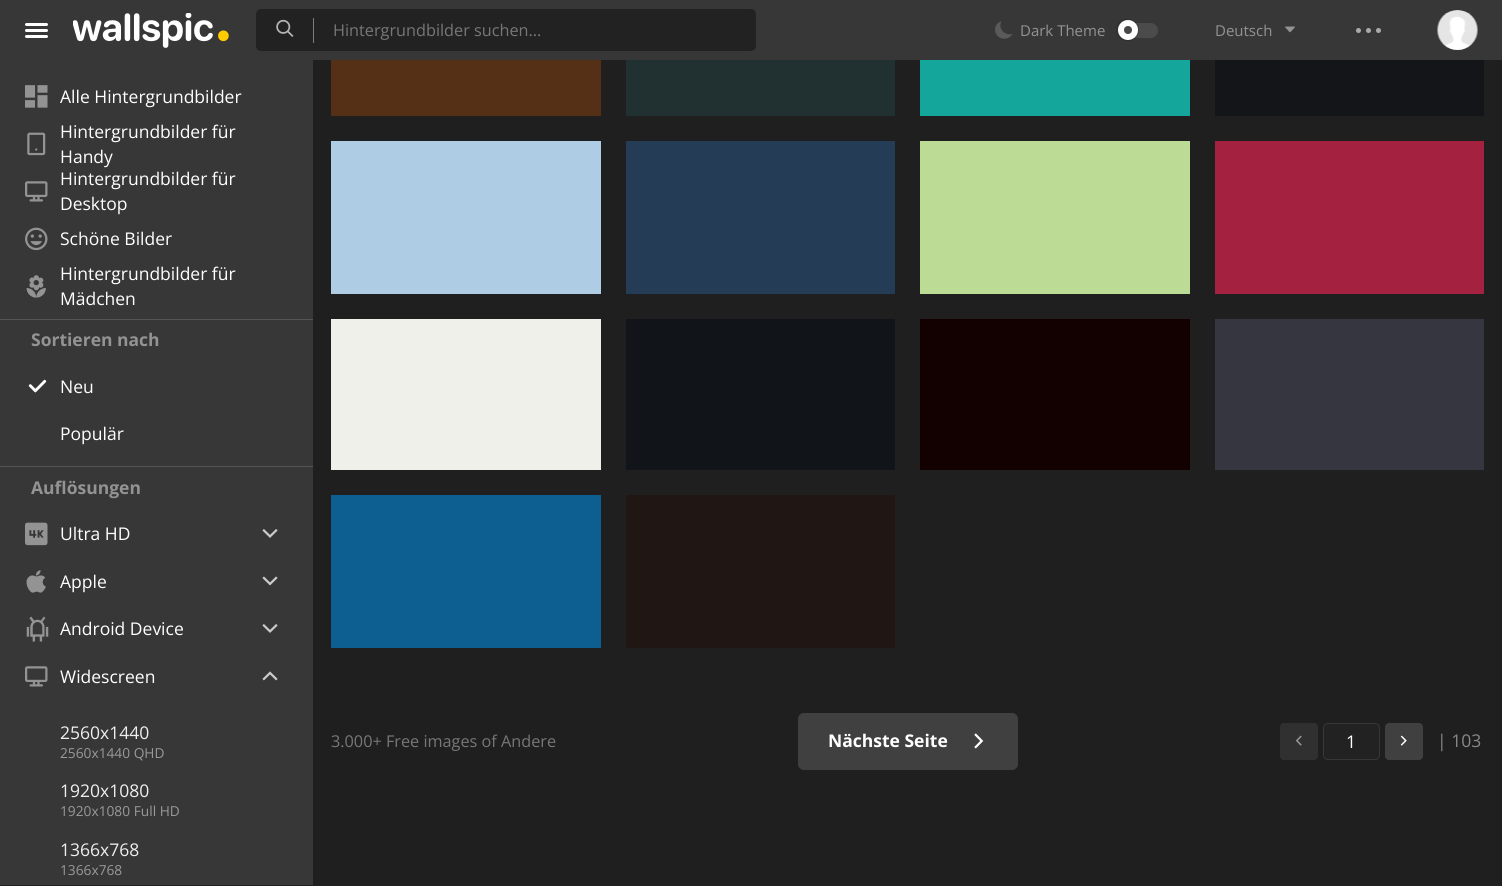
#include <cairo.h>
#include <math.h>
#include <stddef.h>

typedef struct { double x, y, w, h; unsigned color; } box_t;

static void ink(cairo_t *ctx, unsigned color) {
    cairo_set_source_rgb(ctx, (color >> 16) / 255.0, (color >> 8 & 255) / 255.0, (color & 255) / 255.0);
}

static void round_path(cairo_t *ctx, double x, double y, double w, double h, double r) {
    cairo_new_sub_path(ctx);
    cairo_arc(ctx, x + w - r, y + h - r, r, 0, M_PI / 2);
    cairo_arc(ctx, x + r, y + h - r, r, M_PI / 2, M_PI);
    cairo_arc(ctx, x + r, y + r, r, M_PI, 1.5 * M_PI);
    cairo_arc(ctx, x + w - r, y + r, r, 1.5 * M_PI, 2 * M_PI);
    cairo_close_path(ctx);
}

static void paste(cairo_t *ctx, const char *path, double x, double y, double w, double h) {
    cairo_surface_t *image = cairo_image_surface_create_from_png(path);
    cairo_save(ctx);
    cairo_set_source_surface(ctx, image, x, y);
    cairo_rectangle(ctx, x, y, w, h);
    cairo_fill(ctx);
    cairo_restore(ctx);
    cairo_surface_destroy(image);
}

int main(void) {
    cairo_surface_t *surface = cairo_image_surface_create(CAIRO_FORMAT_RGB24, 1502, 886);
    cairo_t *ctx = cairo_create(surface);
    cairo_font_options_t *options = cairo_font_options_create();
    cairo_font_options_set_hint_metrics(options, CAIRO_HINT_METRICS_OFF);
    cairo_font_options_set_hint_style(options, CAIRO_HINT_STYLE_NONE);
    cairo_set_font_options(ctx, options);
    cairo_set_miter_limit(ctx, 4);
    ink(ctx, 0x1F1F1F);
    cairo_paint(ctx);
    ink(ctx, 0x373737);
    cairo_rectangle(ctx, 0, 0, 1502, 60);
    cairo_fill(ctx);
    ink(ctx, 0xFFFFFF);
    round_path(ctx, 25, 23, 23, 3, 1.5);
    cairo_fill(ctx);
    round_path(ctx, 25, 29, 23, 3, 1.5);
    cairo_fill(ctx);
    round_path(ctx, 25, 35, 23, 3, 1.5);
    cairo_fill(ctx);
    paste(ctx, "media/1.png", 73, 13, 156, 35);
    ink(ctx, 0x222222);
    round_path(ctx, 256, 9, 500, 42, 5);
    cairo_fill(ctx);
    paste(ctx, "media/2.png", 276, 19, 18, 18);
    ink(ctx, 0x7E7E7E);
    cairo_rectangle(ctx, 313, 18, 1, 25);
    cairo_fill(ctx);
    cairo_select_font_face(ctx, "Open Sans", CAIRO_FONT_SLANT_NORMAL, CAIRO_FONT_WEIGHT_NORMAL);
    cairo_set_font_size(ctx, 16.25);
    ink(ctx, 0x777777);
    cairo_move_to(ctx, 333, 36);
    cairo_show_text(ctx, "Hintergrundbilder suchen...");
    paste(ctx, "media/3.png", 995, 21, 18, 18);
    ink(ctx, 0x4B4B4B);
    round_path(ctx, 1118, 23, 40, 15, 7.5);
    cairo_fill(ctx);
    round_path(ctx, 1116.5, 19.5, 22, 21, 10.5);
    cairo_set_source_rgba(ctx, 0, 0, 0, 0.15);
    cairo_set_line_width(ctx, 1);
    cairo_stroke(ctx);
    ink(ctx, 0x474747);
    cairo_arc(ctx, 1128, 30, 7, 0, 2 * M_PI);
    cairo_fill_preserve(ctx);
    ink(ctx, 0xFFFFFF);
    cairo_set_line_width(ctx, 6);
    cairo_stroke(ctx);
    cairo_set_font_size(ctx, 15);
    ink(ctx, 0x939393);
    cairo_move_to(ctx, 1020, 36);
    cairo_show_text(ctx, "Dark Theme");
    cairo_move_to(ctx, 1215, 36);
    cairo_show_text(ctx, "Deutsch");
    paste(ctx, "media/4.png", 1285, 26, 10, 7);
    ink(ctx, 0xAAAAAA);
    cairo_arc(ctx, 1358.5, 30.5, 2.5, 0, 2 * M_PI);
    cairo_fill(ctx);
    cairo_arc(ctx, 1368.5, 30.5, 2.5, 0, 2 * M_PI);
    cairo_fill(ctx);
    cairo_arc(ctx, 1378.5, 30.5, 2.5, 0, 2 * M_PI);
    cairo_fill(ctx);
    paste(ctx, "media/5.png", 1437, 10, 41, 40);
    ink(ctx, 0x373737);
    cairo_rectangle(ctx, 0, 60, 313, 825);
    cairo_fill(ctx);
    paste(ctx, "media/6.png", 25, 85, 23, 23);
    cairo_set_font_size(ctx, 17.5);
    ink(ctx, 0xFFFFFF);
    cairo_move_to(ctx, 60, 103);
    cairo_show_text(ctx, "Alle Hintergrundbilder");
    paste(ctx, "media/7.png", 27, 132, 19, 24);
    cairo_move_to(ctx, 60, 138);
    cairo_show_text(ctx, "Hintergrundbilder für");
    cairo_move_to(ctx, 60, 163);
    cairo_show_text(ctx, "Handy");
    paste(ctx, "media/8.png", 25, 181, 23, 21);
    cairo_move_to(ctx, 60, 185);
    cairo_show_text(ctx, "Hintergrundbilder für");
    cairo_move_to(ctx, 60, 210);
    cairo_show_text(ctx, "Desktop");
    paste(ctx, "media/9.png", 25, 227, 23, 24);
    cairo_move_to(ctx, 60, 245);
    cairo_show_text(ctx, "Schöne Bilder");
    paste(ctx, "media/10.png", 26, 275, 20, 23);
    cairo_move_to(ctx, 60, 280);
    cairo_show_text(ctx, "Hintergrundbilder für");
    cairo_move_to(ctx, 60, 305);
    cairo_show_text(ctx, "Mädchen");
    ink(ctx, 0x555555);
    cairo_rectangle(ctx, 0, 319, 313, 1);
    cairo_fill(ctx);
    cairo_select_font_face(ctx, "Open Sans", CAIRO_FONT_SLANT_NORMAL, CAIRO_FONT_WEIGHT_BOLD);
    ink(ctx, 0x939393);
    cairo_move_to(ctx, 31, 346);
    cairo_show_text(ctx, "Sortieren nach");
    paste(ctx, "media/11.png", 28, 379, 19, 14);
    cairo_select_font_face(ctx, "Open Sans", CAIRO_FONT_SLANT_NORMAL, CAIRO_FONT_WEIGHT_NORMAL);
    ink(ctx, 0xFFFFFF);
    cairo_move_to(ctx, 60, 393);
    cairo_show_text(ctx, "Neu");
    cairo_move_to(ctx, 60, 440);
    cairo_show_text(ctx, "Populär");
    ink(ctx, 0x555555);
    cairo_rectangle(ctx, 0, 466, 313, 1);
    cairo_fill(ctx);
    cairo_select_font_face(ctx, "Open Sans", CAIRO_FONT_SLANT_NORMAL, CAIRO_FONT_WEIGHT_BOLD);
    ink(ctx, 0x939393);
    cairo_move_to(ctx, 31, 494);
    cairo_show_text(ctx, "Auflösungen");
    paste(ctx, "media/12.png", 25, 522, 23, 24);
    cairo_select_font_face(ctx, "Open Sans", CAIRO_FONT_SLANT_NORMAL, CAIRO_FONT_WEIGHT_NORMAL);
    ink(ctx, 0xFFFFFF);
    cairo_move_to(ctx, 60, 540);
    cairo_show_text(ctx, "Ultra HD");
    paste(ctx, "media/13.png", 262, 529, 16, 9);
    paste(ctx, "media/14.png", 26, 570, 20, 23);
    cairo_move_to(ctx, 60, 588);
    cairo_show_text(ctx, "Apple");
    paste(ctx, "media/15.png", 262, 576, 16, 10);
    paste(ctx, "media/16.png", 26, 616, 23, 26);
    cairo_move_to(ctx, 60, 635);
    cairo_show_text(ctx, "Android Device");
    paste(ctx, "media/13.png", 262, 624, 16, 9);
    paste(ctx, "media/8.png", 25, 666, 23, 21);
    cairo_move_to(ctx, 60, 683);
    cairo_show_text(ctx, "Widescreen");
    paste(ctx, "media/17.png", 262, 671, 16, 10);
    ink(ctx, 0xEEEEEE);
    cairo_move_to(ctx, 60, 739);
    cairo_show_text(ctx, "2560x1440");
    cairo_set_font_size(ctx, 13.75);
    ink(ctx, 0x999999);
    cairo_move_to(ctx, 60, 758);
    cairo_show_text(ctx, "2560x1440 QHD");
    cairo_set_font_size(ctx, 17.5);
    ink(ctx, 0xEEEEEE);
    cairo_move_to(ctx, 60, 797);
    cairo_show_text(ctx, "1920x1080");
    cairo_set_font_size(ctx, 13.75);
    ink(ctx, 0x999999);
    cairo_move_to(ctx, 60, 816);
    cairo_show_text(ctx, "1920x1080 Full HD");
    cairo_set_font_size(ctx, 17.5);
    ink(ctx, 0xEEEEEE);
    cairo_move_to(ctx, 60, 856);
    cairo_show_text(ctx, "1366x768");
    cairo_set_font_size(ctx, 13.75);
    ink(ctx, 0x999999);
    cairo_move_to(ctx, 60, 875);
    cairo_show_text(ctx, "1366x768");
    {
        static const box_t items[] = {
            {331, 60, 270, 56, 0x562F17},
            {331, 141, 270, 153, 0xAECDE4},
            {331, 319, 270, 151, 0xEEF0E9},
            {331, 495, 270, 153, 0x0D5F92},
            {626, 60, 269, 56, 0x213030},
            {626, 141, 269, 153, 0x253C56},
            {626, 319, 269, 151, 0x111519},
            {626, 495, 269, 153, 0x201715},
            {920, 60, 270, 56, 0x14A59B},
            {920, 141, 270, 153, 0xBCDC95},
            {920, 319, 270, 151, 0x130101},
            {1215, 60, 269, 56, 0x131519},
            {1215, 141, 269, 153, 0xA42240},
            {1215, 319, 269, 151, 0x363640},
        };
        for (size_t i = 0; i < sizeof items / sizeof *items; i++) {
            ink(ctx, items[i].color);
            cairo_rectangle(ctx, items[i].x, items[i].y, items[i].w, items[i].h);
            cairo_fill(ctx);
        }
    }
    cairo_set_font_size(ctx, 16.25);
    ink(ctx, 0x777777);
    cairo_move_to(ctx, 331, 747);
    cairo_show_text(ctx, "3.000+ Free images of Andere");
    ink(ctx, 0x404040);
    round_path(ctx, 798, 713, 220, 57, 6);
    cairo_fill(ctx);
    cairo_select_font_face(ctx, "Open Sans", CAIRO_FONT_SLANT_NORMAL, CAIRO_FONT_WEIGHT_BOLD);
    cairo_set_font_size(ctx, 17.5);
    ink(ctx, 0xFFFFFF);
    cairo_move_to(ctx, 828, 747);
    cairo_show_text(ctx, "Nächste Seite");
    paste(ctx, "media/18.png", 974, 733, 10, 16);
    ink(ctx, 0x303030);
    round_path(ctx, 1280, 723, 38, 37, 4);
    cairo_fill(ctx);
    paste(ctx, "media/19.png", 1295, 735, 7, 11);
    ink(ctx, 0x222222);
    round_path(ctx, 1323.5, 723.5, 56, 36, 4.5);
    cairo_fill_preserve(ctx);
    ink(ctx, 0x373737);
    cairo_set_line_width(ctx, 1);
    cairo_stroke(ctx);
    cairo_select_font_face(ctx, "Open Sans", CAIRO_FONT_SLANT_NORMAL, CAIRO_FONT_WEIGHT_NORMAL);
    ink(ctx, 0xFFFFFF);
    cairo_move_to(ctx, 1346, 748);
    cairo_show_text(ctx, "1");
    ink(ctx, 0x404040);
    round_path(ctx, 1385, 723, 38, 37, 4);
    cairo_fill(ctx);
    paste(ctx, "media/20.png", 1400, 735, 7, 11);
    ink(ctx, 0x888888);
    cairo_move_to(ctx, 1437, 747);
    cairo_show_text(ctx, "| 103");
    ink(ctx, 0x222222);
    cairo_rectangle(ctx, 0, 885, 1502, 1);
    cairo_fill(ctx);
    cairo_surface_write_to_png(surface, "image.png");
    cairo_font_options_destroy(options);
    cairo_destroy(ctx);
    cairo_surface_destroy(surface);
    return 0;
}
